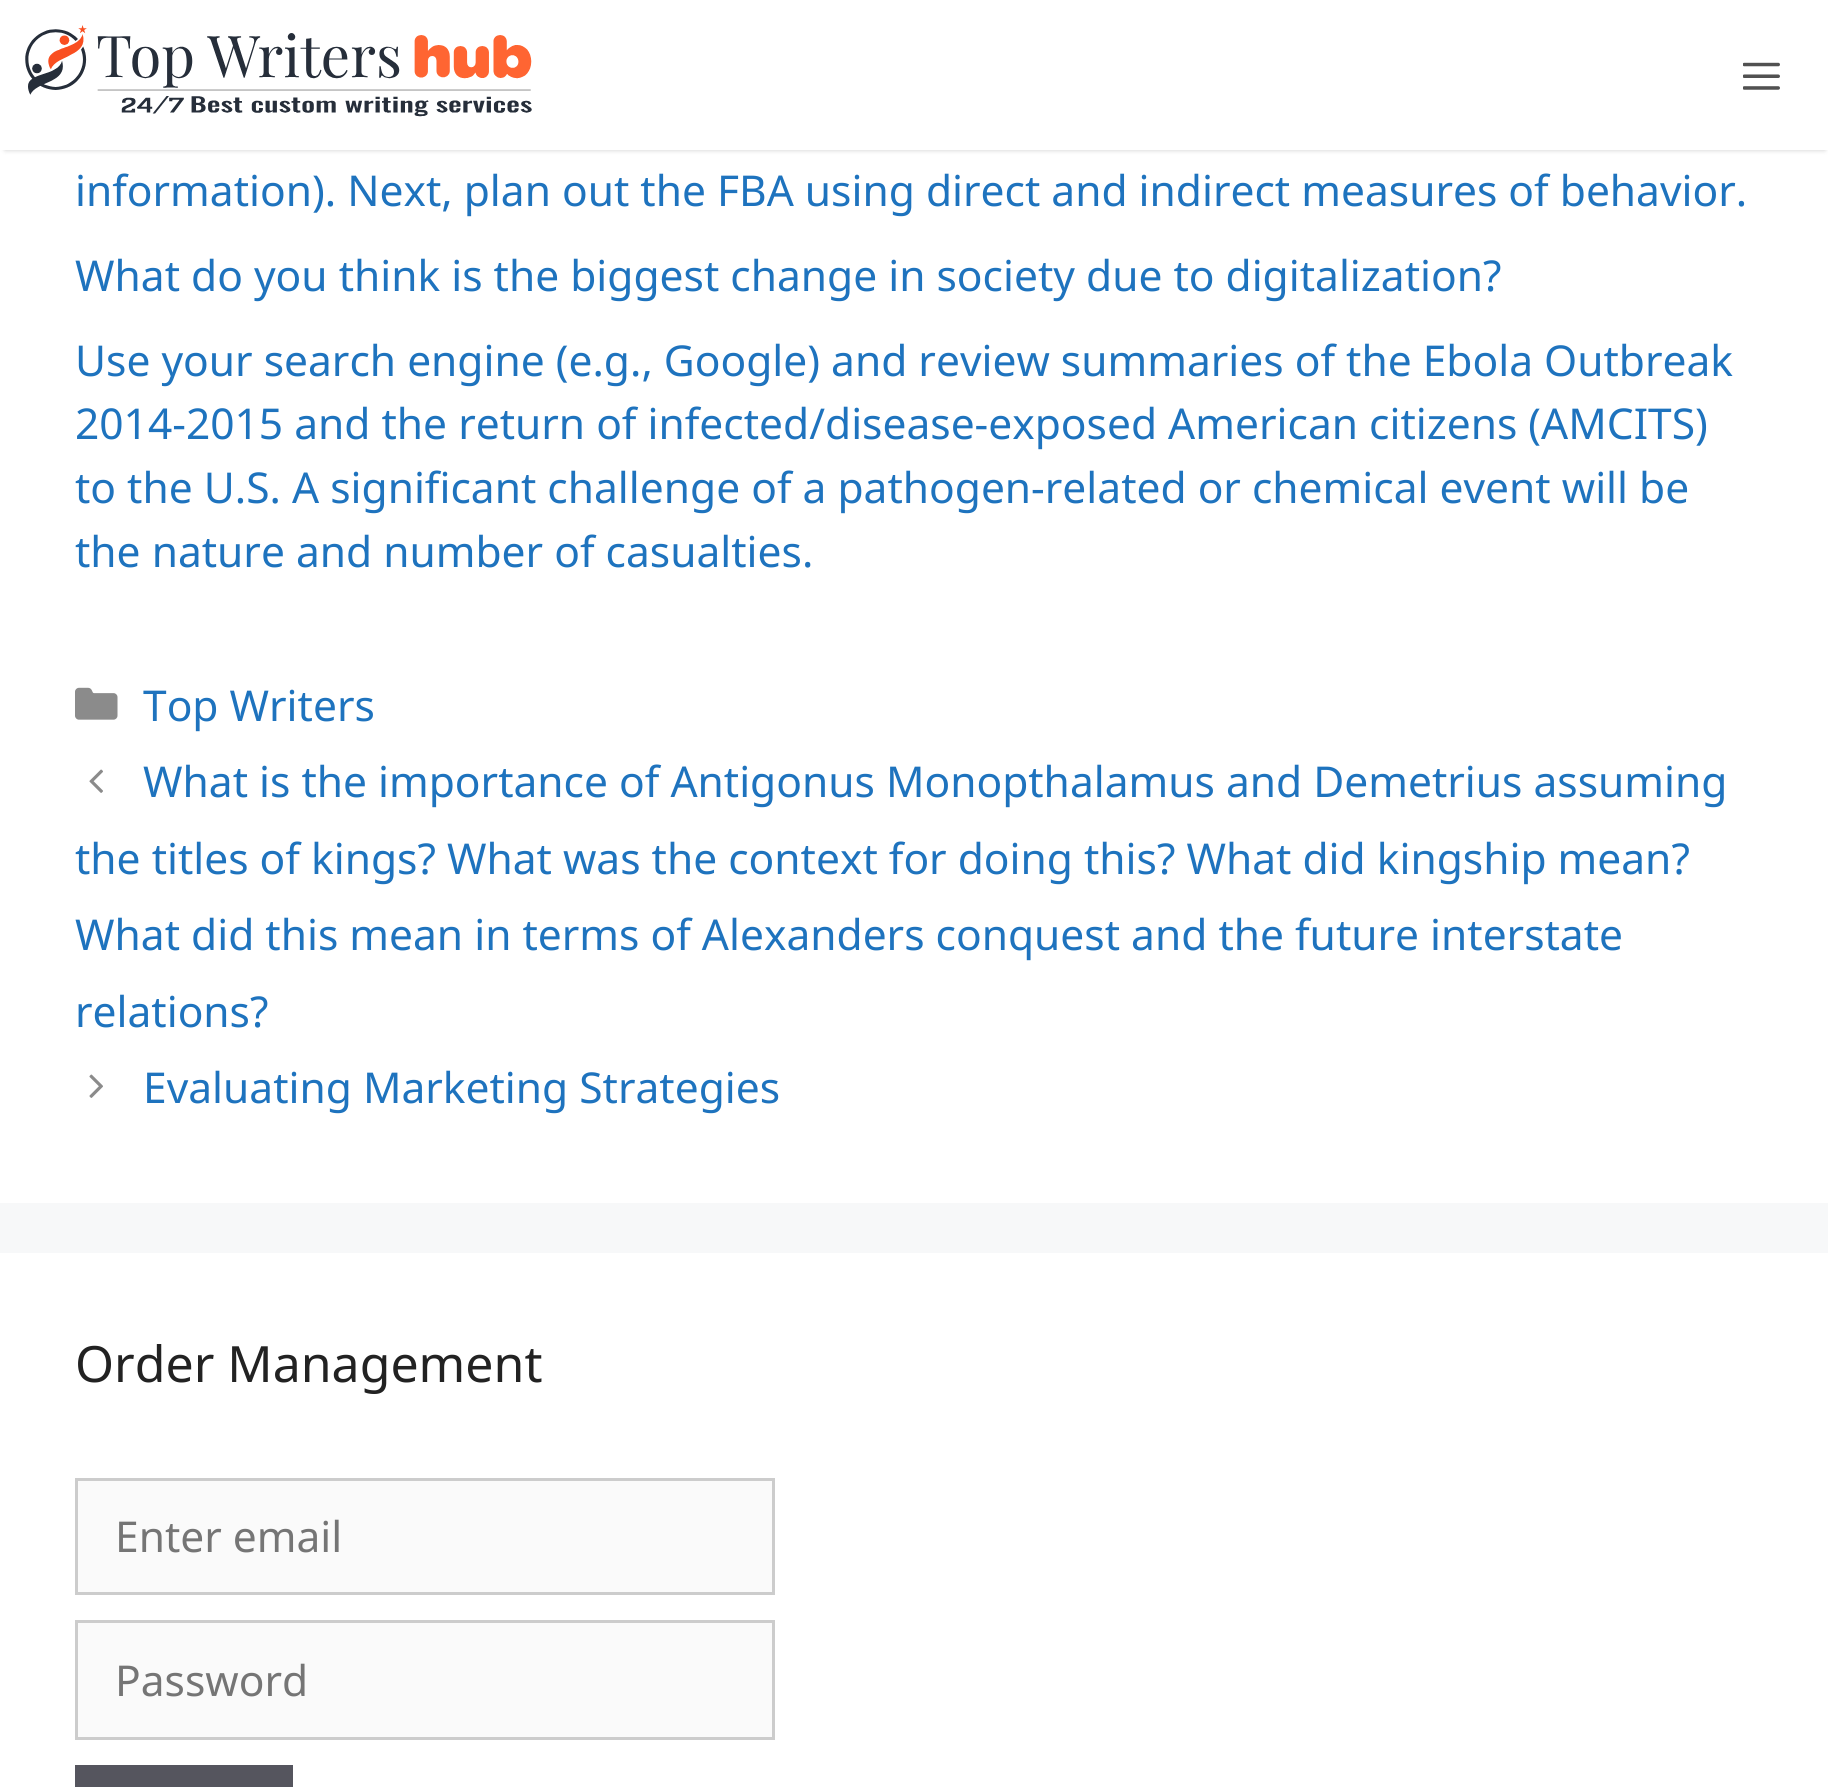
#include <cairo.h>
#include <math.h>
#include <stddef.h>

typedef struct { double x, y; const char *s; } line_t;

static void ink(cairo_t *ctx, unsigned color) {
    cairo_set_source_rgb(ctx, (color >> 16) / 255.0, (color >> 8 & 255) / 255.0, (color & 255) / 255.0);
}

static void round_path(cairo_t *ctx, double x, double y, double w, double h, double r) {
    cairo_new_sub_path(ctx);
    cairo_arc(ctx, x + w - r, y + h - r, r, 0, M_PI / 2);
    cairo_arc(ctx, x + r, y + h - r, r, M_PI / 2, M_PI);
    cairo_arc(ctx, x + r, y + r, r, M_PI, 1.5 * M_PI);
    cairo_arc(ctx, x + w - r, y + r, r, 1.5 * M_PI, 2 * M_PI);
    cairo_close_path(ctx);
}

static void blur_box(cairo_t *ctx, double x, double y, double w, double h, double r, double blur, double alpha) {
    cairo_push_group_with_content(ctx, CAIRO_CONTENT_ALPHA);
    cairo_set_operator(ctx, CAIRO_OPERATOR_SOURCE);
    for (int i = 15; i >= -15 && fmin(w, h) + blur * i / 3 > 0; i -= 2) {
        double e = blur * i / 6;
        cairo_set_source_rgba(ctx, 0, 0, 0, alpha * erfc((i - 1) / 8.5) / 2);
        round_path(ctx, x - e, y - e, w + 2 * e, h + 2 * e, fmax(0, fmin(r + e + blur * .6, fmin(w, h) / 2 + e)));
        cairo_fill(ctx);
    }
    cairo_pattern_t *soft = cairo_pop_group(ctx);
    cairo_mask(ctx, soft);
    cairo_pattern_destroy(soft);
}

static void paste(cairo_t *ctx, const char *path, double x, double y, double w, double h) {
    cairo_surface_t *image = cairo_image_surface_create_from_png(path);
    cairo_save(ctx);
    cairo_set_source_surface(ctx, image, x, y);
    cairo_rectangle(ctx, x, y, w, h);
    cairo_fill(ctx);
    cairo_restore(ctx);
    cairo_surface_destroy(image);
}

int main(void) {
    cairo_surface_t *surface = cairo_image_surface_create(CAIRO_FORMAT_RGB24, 1828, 1787);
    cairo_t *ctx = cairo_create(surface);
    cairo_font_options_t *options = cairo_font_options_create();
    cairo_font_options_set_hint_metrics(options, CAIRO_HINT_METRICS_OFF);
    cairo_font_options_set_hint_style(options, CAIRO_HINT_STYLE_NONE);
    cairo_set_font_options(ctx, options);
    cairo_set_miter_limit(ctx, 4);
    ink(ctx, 0xF7F8F9);
    cairo_paint(ctx);
    ink(ctx, 0xFFFFFF);
    cairo_rectangle(ctx, 0, 150, 1828, 1053);
    cairo_fill(ctx);
    ink(ctx, 0x000000);
    blur_box(ctx, 5, 10, 1820, 140, 0, 2.5, 0.2);
    ink(ctx, 0xFFFFFF);
    cairo_rectangle(ctx, 0, 0, 1828, 150);
    cairo_fill(ctx);
    paste(ctx, "media/1.png", 25, 25, 507, 92);
    paste(ctx, "media/2.png", 1743, 62, 37, 28);
    cairo_select_font_face(ctx, "Noto Sans", CAIRO_FONT_SLANT_NORMAL, CAIRO_FONT_WEIGHT_NORMAL);
    cairo_set_font_size(ctx, 42.5);
    ink(ctx, 0x1E73BE);
    {
        static const line_t items[] = {
            {75, 206, "information). Next, plan out the FBA using direct and indirect measures of behavior."},
            {75, 291, "What do you think is the biggest change in society due to digitalization?"},
            {75, 376, "Use your search engine (e.g., Google) and review summaries of the Ebola Outbreak"},
            {75, 439, "2014-2015 and the return of infected/disease-exposed American citizens (AMCITS)"},
            {75, 503, "to the U.S. A significant challenge of a pathogen-related or chemical event will be"},
            {75, 567, "the nature and number of casualties."},
        };
        for (size_t i = 0; i < sizeof items / sizeof *items; i++) {
            cairo_move_to(ctx, items[i].x, items[i].y);
            cairo_show_text(ctx, items[i].s);
        }
    }
    paste(ctx, "media/3.png", 75, 687, 43, 33);
    cairo_move_to(ctx, 143, 721);
    cairo_show_text(ctx, "Top Writers");
    paste(ctx, "media/4.png", 89, 769, 14, 24);
    {
        static const line_t items[] = {
            {143, 797, "What is the importance of Antigonus Monopthalamus and Demetrius assuming"},
            {75, 874, "the titles of kings? What was the context for doing this? What did kingship mean?"},
            {75, 950, "What did this mean in terms of Alexanders conquest and the future interstate"},
            {75, 1027, "relations?"},
        };
        for (size_t i = 0; i < sizeof items / sizeof *items; i++) {
            cairo_move_to(ctx, items[i].x, items[i].y);
            cairo_show_text(ctx, items[i].s);
        }
    }
    paste(ctx, "media/5.png", 89, 1074, 14, 24);
    cairo_move_to(ctx, 143, 1103);
    cairo_show_text(ctx, "Evaluating Marketing Strategies");
    ink(ctx, 0xFFFFFF);
    cairo_rectangle(ctx, 0, 1253, 1828, 534);
    cairo_fill(ctx);
    cairo_set_font_size(ctx, 50);
    ink(ctx, 0x222222);
    cairo_move_to(ctx, 75, 1382);
    cairo_show_text(ctx, "Order Management");
    ink(ctx, 0xFAFAFA);
    cairo_rectangle(ctx, 76.5, 1479.5, 697, 114);
    cairo_fill_preserve(ctx);
    ink(ctx, 0xCCCCCC);
    cairo_set_line_width(ctx, 3);
    cairo_stroke(ctx);
    cairo_set_font_size(ctx, 42.5);
    ink(ctx, 0x757575);
    cairo_move_to(ctx, 115, 1552);
    cairo_show_text(ctx, "Enter email");
    ink(ctx, 0xFAFAFA);
    cairo_rectangle(ctx, 76.5, 1621.5, 697, 117);
    cairo_fill_preserve(ctx);
    ink(ctx, 0xCCCCCC);
    cairo_stroke(ctx);
    ink(ctx, 0x757575);
    cairo_move_to(ctx, 115, 1696);
    cairo_show_text(ctx, "Password");
    ink(ctx, 0x55555E);
    cairo_rectangle(ctx, 75, 1765, 218, 22);
    cairo_fill(ctx);
    cairo_surface_write_to_png(surface, "image.png");
    cairo_font_options_destroy(options);
    cairo_destroy(ctx);
    cairo_surface_destroy(surface);
    return 0;
}
